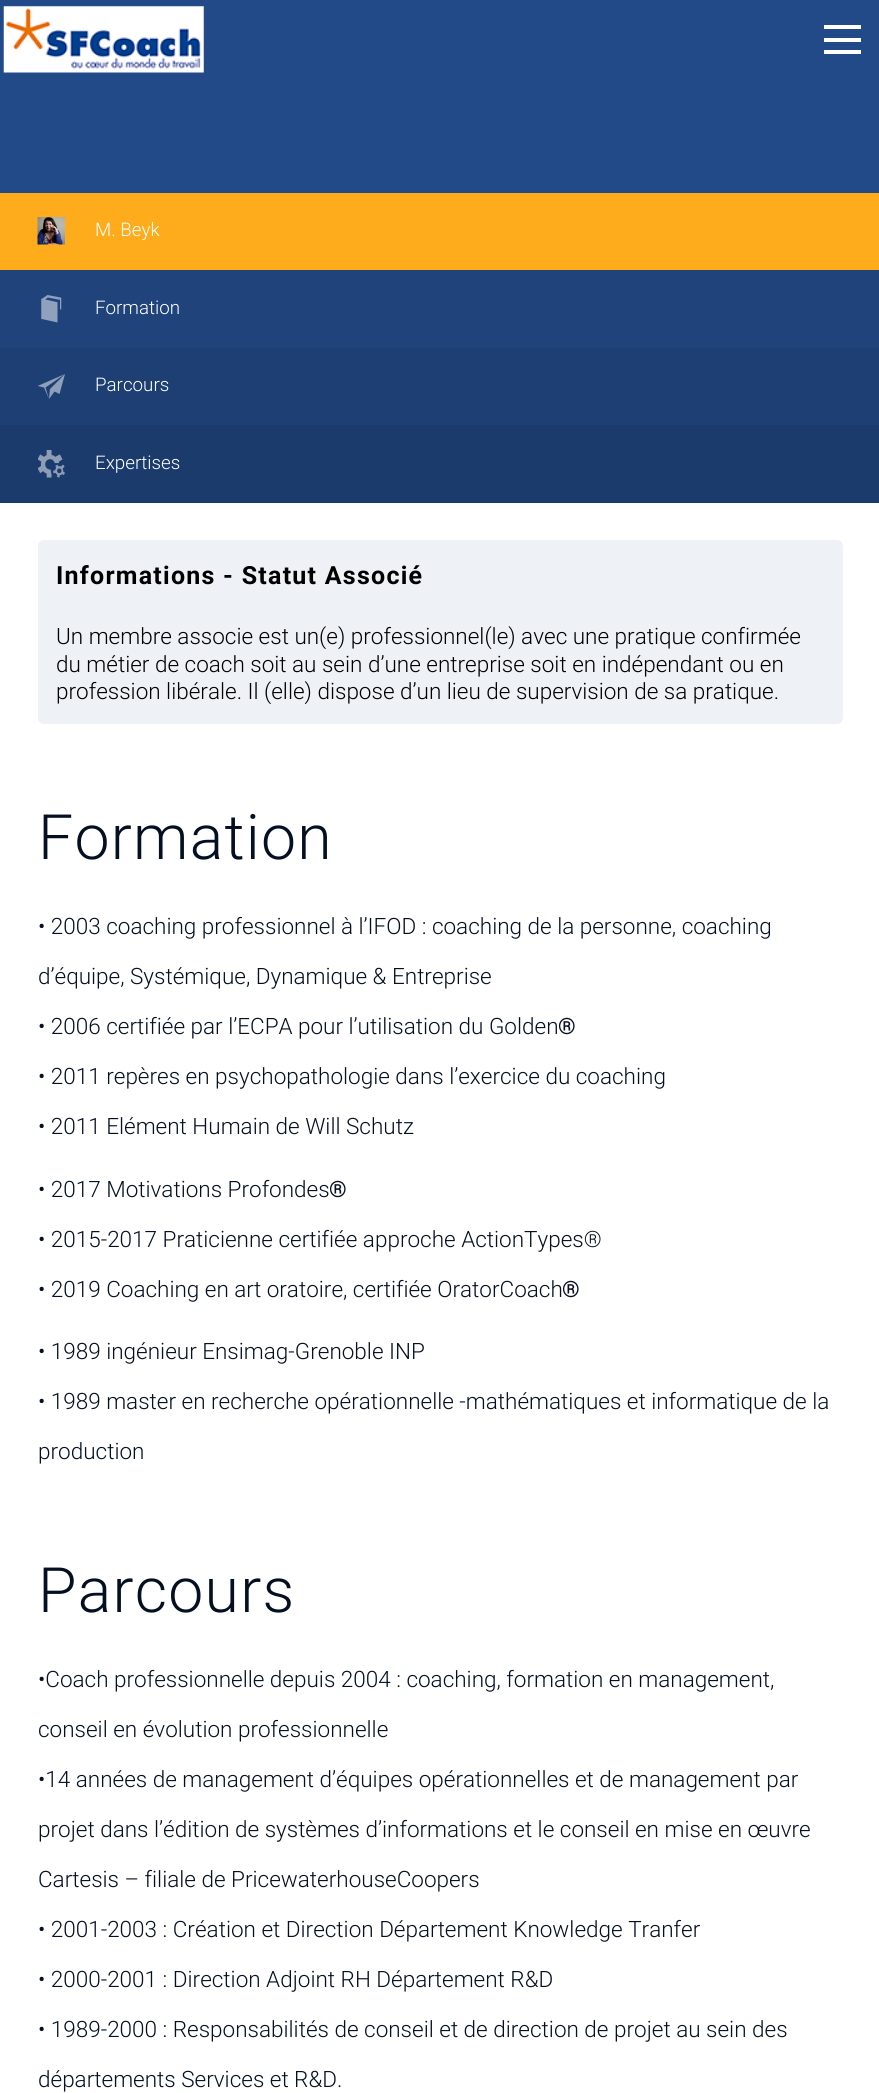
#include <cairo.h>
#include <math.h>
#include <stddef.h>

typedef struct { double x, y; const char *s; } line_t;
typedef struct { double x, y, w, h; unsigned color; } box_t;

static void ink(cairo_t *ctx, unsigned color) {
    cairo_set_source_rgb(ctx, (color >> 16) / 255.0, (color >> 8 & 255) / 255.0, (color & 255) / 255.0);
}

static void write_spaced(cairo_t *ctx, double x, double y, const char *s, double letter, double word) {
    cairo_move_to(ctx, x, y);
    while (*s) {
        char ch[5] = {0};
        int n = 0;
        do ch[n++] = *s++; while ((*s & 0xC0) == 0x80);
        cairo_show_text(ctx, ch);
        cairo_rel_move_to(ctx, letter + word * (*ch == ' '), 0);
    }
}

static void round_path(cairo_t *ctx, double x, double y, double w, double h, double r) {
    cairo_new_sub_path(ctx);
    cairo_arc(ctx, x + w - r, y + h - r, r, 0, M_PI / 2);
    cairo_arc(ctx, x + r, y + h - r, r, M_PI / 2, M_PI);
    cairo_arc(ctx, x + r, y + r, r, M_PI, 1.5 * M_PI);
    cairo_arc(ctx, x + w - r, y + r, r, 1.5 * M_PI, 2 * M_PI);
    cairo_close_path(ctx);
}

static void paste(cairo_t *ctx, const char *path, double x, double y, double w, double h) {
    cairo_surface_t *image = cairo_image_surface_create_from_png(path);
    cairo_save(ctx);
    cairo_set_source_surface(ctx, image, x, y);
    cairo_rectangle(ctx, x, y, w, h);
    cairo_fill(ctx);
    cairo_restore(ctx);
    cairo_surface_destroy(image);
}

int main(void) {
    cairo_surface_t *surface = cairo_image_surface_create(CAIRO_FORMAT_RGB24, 879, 2093);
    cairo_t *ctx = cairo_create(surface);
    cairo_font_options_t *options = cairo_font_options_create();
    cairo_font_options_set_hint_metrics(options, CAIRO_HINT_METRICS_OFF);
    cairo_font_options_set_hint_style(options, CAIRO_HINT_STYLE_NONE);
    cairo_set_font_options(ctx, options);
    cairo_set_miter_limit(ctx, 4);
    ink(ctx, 0xFFFFFF);
    cairo_paint(ctx);
    ink(ctx, 0x224A88);
    cairo_rectangle(ctx, 0, 0, 879, 193);
    cairo_fill(ctx);
    paste(ctx, "media/1.png", 3, 6, 201, 67);
    {
        static const box_t items[] = {
            {824, 38, 37, 4, 0xFFFFFF},
            {824, 25, 37, 4, 0xFFFFFF},
            {824, 50, 37, 4, 0xFFFFFF},
            {0, 193, 879, 77, 0xFFAC1C},
        };
        for (size_t i = 0; i < sizeof items / sizeof *items; i++) {
            ink(ctx, items[i].color);
            cairo_rectangle(ctx, items[i].x, items[i].y, items[i].w, items[i].h);
            cairo_fill(ctx);
        }
    }
    paste(ctx, "media/2.png", 37, 217, 28, 28);
    cairo_select_font_face(ctx, "Roboto Light", CAIRO_FONT_SLANT_NORMAL, CAIRO_FONT_WEIGHT_NORMAL);
    cairo_set_font_size(ctx, 18.75);
    ink(ctx, 0xFFFFFF);
    cairo_move_to(ctx, 95, 236);
    cairo_show_text(ctx, "M. Beyk");
    ink(ctx, 0x1F437A);
    cairo_rectangle(ctx, 0, 270, 879, 78);
    cairo_fill(ctx);
    paste(ctx, "media/3.png", 41, 295, 21, 28);
    ink(ctx, 0xFFFFFF);
    cairo_move_to(ctx, 95, 314);
    cairo_show_text(ctx, "Formation");
    ink(ctx, 0x1D3F74);
    cairo_rectangle(ctx, 0, 348, 879, 77);
    cairo_fill(ctx);
    ink(ctx, 0x8E9FBA);
    cairo_new_path(ctx);
    cairo_move_to(ctx, 65, 374);
    cairo_line_to(ctx, 50, 389);
    cairo_line_to(ctx, 49, 399);
    cairo_line_to(ctx, 54.5, 391.5);
    cairo_line_to(ctx, 59.5, 394);
    cairo_close_path(ctx);
    cairo_move_to(ctx, 65, 374);
    cairo_line_to(ctx, 37.5, 386);
    cairo_line_to(ctx, 44, 387.5);
    cairo_line_to(ctx, 49, 399);
    cairo_line_to(ctx, 45.5, 387.5);
    cairo_close_path(ctx);
    cairo_fill(ctx);
    ink(ctx, 0xFFFFFF);
    cairo_move_to(ctx, 95, 391);
    cairo_show_text(ctx, "Parcours");
    ink(ctx, 0x1B3B6D);
    cairo_rectangle(ctx, 0, 425, 879, 78);
    cairo_fill(ctx);
    paste(ctx, "media/4.png", 38, 450, 27, 28);
    ink(ctx, 0xFFFFFF);
    cairo_move_to(ctx, 95, 469);
    cairo_show_text(ctx, "Expertises");
    ink(ctx, 0xEEF2F7);
    round_path(ctx, 38, 540, 805, 184, 6);
    cairo_fill(ctx);
    cairo_select_font_face(ctx, "Roboto", CAIRO_FONT_SLANT_NORMAL, CAIRO_FONT_WEIGHT_BOLD);
    cairo_set_font_size(ctx, 25);
    ink(ctx, 0x000000);
    write_spaced(ctx, 56, 584, "Informations - Statut Associé", 1.25, 0);
    cairo_select_font_face(ctx, "Roboto Light", CAIRO_FONT_SLANT_NORMAL, CAIRO_FONT_WEIGHT_NORMAL);
    cairo_set_font_size(ctx, 22.5);
    {
        static const line_t items[] = {
            {56, 644, "Un membre associe est un(e) professionnel(le) avec une pratique confirmée"},
            {56, 672, "du métier de coach soit au sein d’une entreprise soit en indépendant ou en"},
            {56, 699, "profession libérale. Il (elle) dispose d’un lieu de supervision de sa pratique."},
        };
        for (size_t i = 0; i < sizeof items / sizeof *items; i++) {
            cairo_move_to(ctx, items[i].x, items[i].y);
            cairo_show_text(ctx, items[i].s);
        }
    }
    cairo_set_font_size(ctx, 62.5);
    ink(ctx, 0x041022);
    write_spaced(ctx, 38, 859, "Formation", 1.25, 0);
    cairo_set_font_size(ctx, 22.5);
    {
        static const line_t items[] = {
            {38, 934, "• 2003 coaching professionnel à l’IFOD : coaching de la personne, coaching"},
            {38, 984, "d’équipe, Systémique, Dynamique & Entreprise"},
            {38, 1034, "• 2006 certifiée par l’ECPA pour l’utilisation du Golden"},
        };
        for (size_t i = 0; i < sizeof items / sizeof *items; i++) {
            cairo_move_to(ctx, items[i].x, items[i].y);
            cairo_show_text(ctx, items[i].s);
        }
    }
    cairo_select_font_face(ctx, "Roboto", CAIRO_FONT_SLANT_NORMAL, CAIRO_FONT_WEIGHT_BOLD);
    cairo_move_to(ctx, 558, 1034);
    cairo_show_text(ctx, "®");
    cairo_select_font_face(ctx, "Roboto Light", CAIRO_FONT_SLANT_NORMAL, CAIRO_FONT_WEIGHT_NORMAL);
    {
        static const line_t items[] = {
            {38, 1084, "• 2011 repères en psychopathologie dans l’exercice du coaching"},
            {38, 1134, "• 2011 Elément Humain de Will Schutz"},
            {38, 1197, "• 2017 Motivations Profondes"},
        };
        for (size_t i = 0; i < sizeof items / sizeof *items; i++) {
            cairo_move_to(ctx, items[i].x, items[i].y);
            cairo_show_text(ctx, items[i].s);
        }
    }
    cairo_select_font_face(ctx, "Roboto", CAIRO_FONT_SLANT_NORMAL, CAIRO_FONT_WEIGHT_BOLD);
    cairo_move_to(ctx, 329, 1197);
    cairo_show_text(ctx, "®");
    cairo_select_font_face(ctx, "Roboto Light", CAIRO_FONT_SLANT_NORMAL, CAIRO_FONT_WEIGHT_NORMAL);
    cairo_move_to(ctx, 38, 1247);
    cairo_show_text(ctx, "• 2015-2017 Praticienne certifiée approche ActionTypes®");
    cairo_move_to(ctx, 38, 1297);
    cairo_show_text(ctx, "• 2019 Coaching en art oratoire, certifiée OratorCoach");
    cairo_select_font_face(ctx, "Roboto", CAIRO_FONT_SLANT_NORMAL, CAIRO_FONT_WEIGHT_BOLD);
    cairo_move_to(ctx, 562, 1297);
    cairo_show_text(ctx, "®");
    cairo_select_font_face(ctx, "Roboto Light", CAIRO_FONT_SLANT_NORMAL, CAIRO_FONT_WEIGHT_NORMAL);
    {
        static const line_t items[] = {
            {38, 1359, "• 1989 ingénieur Ensimag-Grenoble INP"},
            {38, 1409, "• 1989 master en recherche opérationnelle -mathématiques et informatique de la"},
            {38, 1459, "production"},
        };
        for (size_t i = 0; i < sizeof items / sizeof *items; i++) {
            cairo_move_to(ctx, items[i].x, items[i].y);
            cairo_show_text(ctx, items[i].s);
        }
    }
    cairo_set_font_size(ctx, 62.5);
    write_spaced(ctx, 38, 1612, "Parcours", 1.25, 0);
    cairo_set_font_size(ctx, 22.5);
    {
        static const line_t items[] = {
            {38, 1687, "•Coach professionnelle depuis 2004 : coaching, formation en management,"},
            {38, 1737, "conseil en évolution professionnelle"},
            {38, 1787, "•14 années de management d’équipes opérationnelles et de management par"},
            {38, 1837, "projet dans l’édition de systèmes d’informations et le conseil en mise en œuvre"},
            {38, 1887, "Cartesis – filiale de PricewaterhouseCoopers"},
            {38, 1937, "• 2001-2003 : Création et Direction Département Knowledge Tranfer"},
            {38, 1987, "• 2000-2001 : Direction Adjoint RH Département R&D"},
            {38, 2037, "• 1989-2000 : Responsabilités de conseil et de direction de projet au sein des"},
            {38, 2087, "départements Services et R&D."},
        };
        for (size_t i = 0; i < sizeof items / sizeof *items; i++) {
            cairo_move_to(ctx, items[i].x, items[i].y);
            cairo_show_text(ctx, items[i].s);
        }
    }
    cairo_surface_write_to_png(surface, "image.png");
    cairo_font_options_destroy(options);
    cairo_destroy(ctx);
    cairo_surface_destroy(surface);
    return 0;
}
